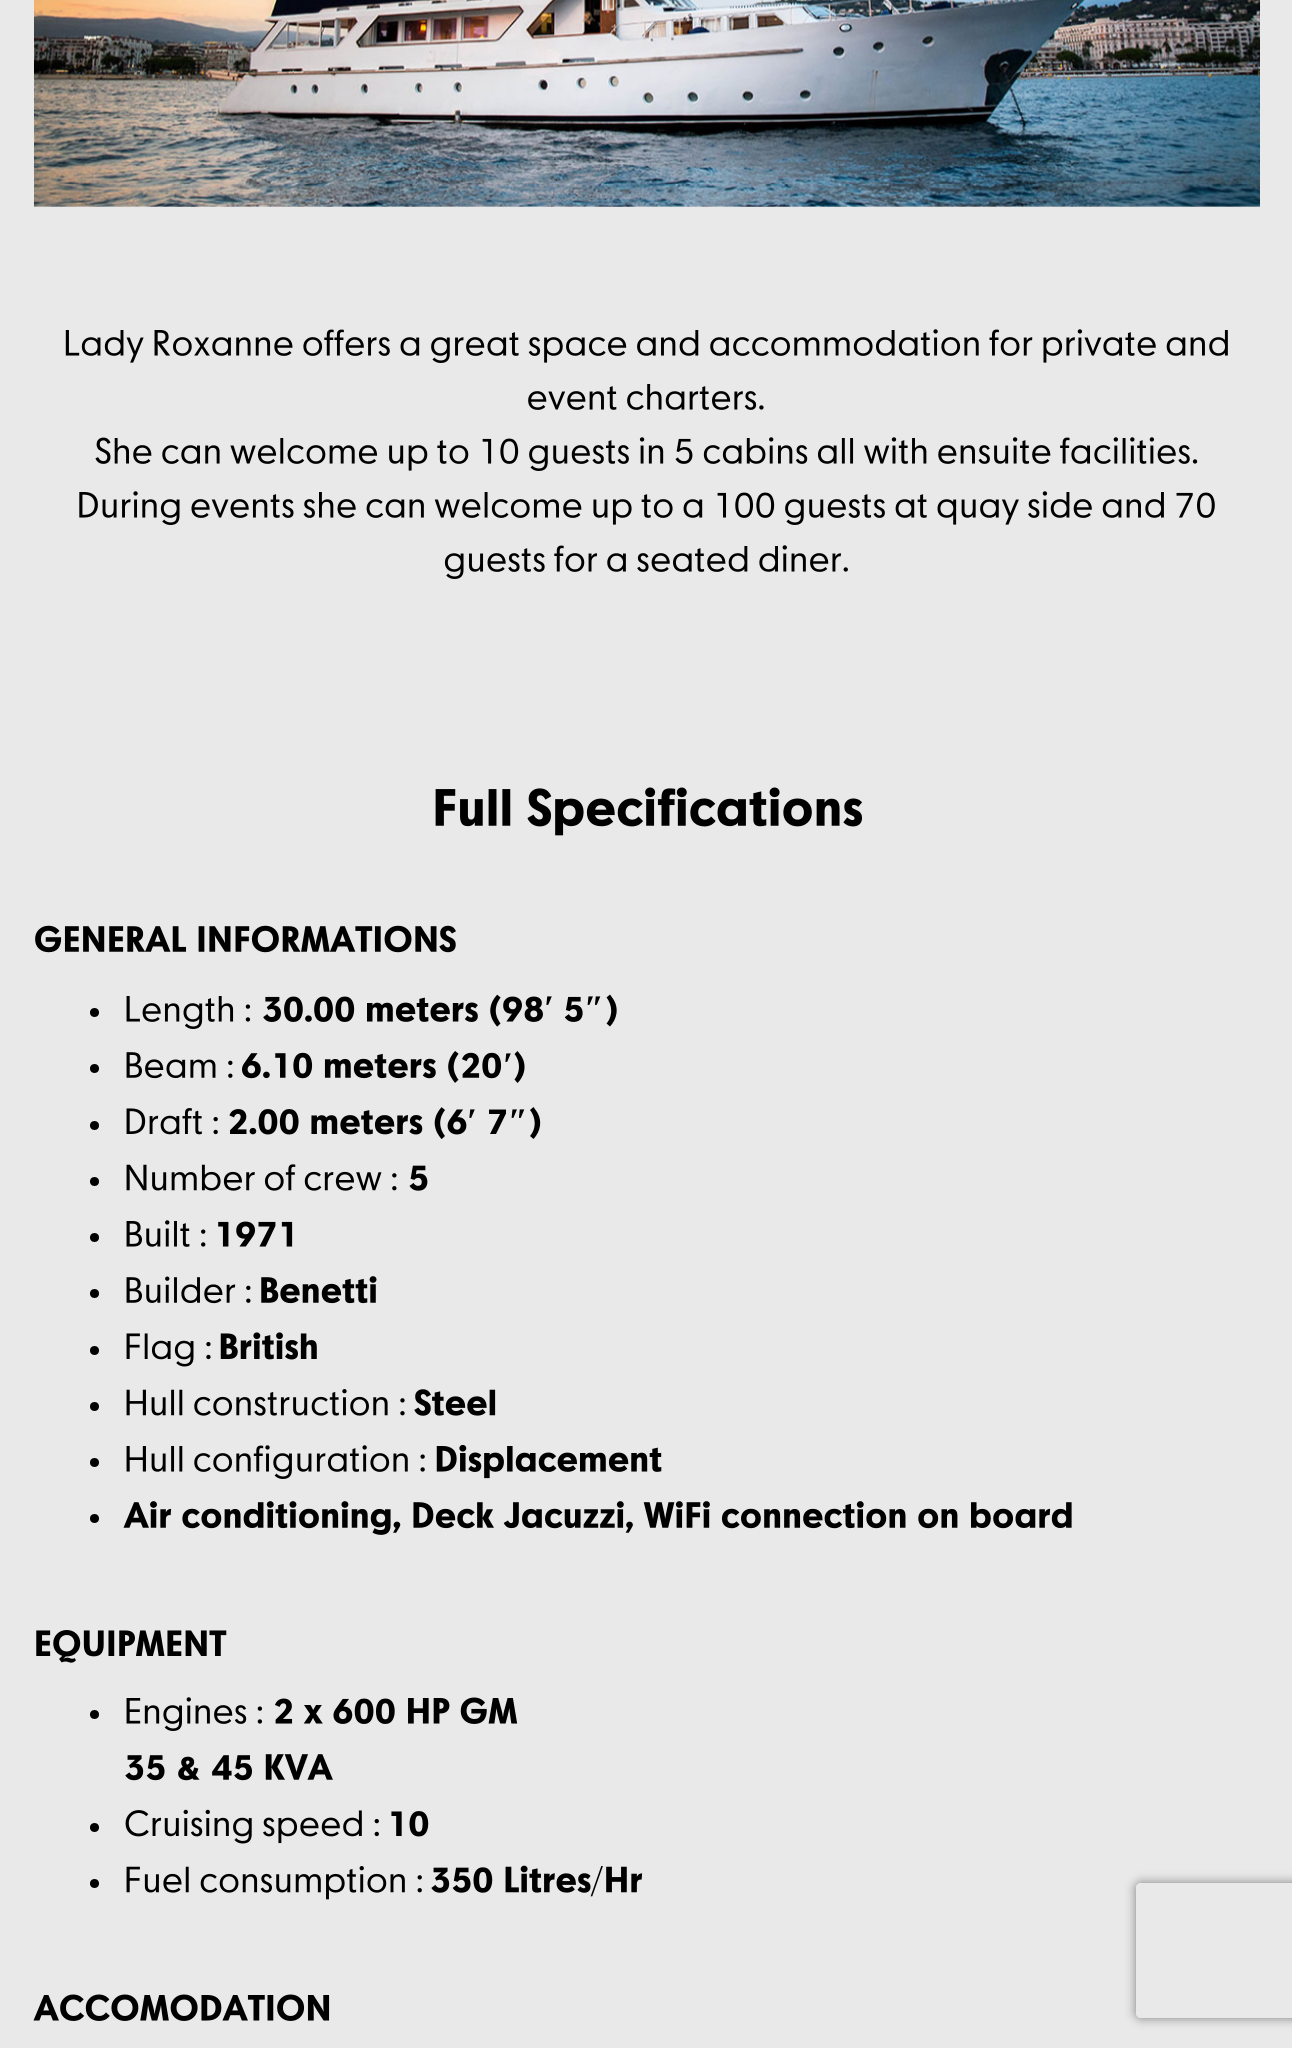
#include <cairo.h>
#include <math.h>
#include <stddef.h>


static void ink(cairo_t *ctx, unsigned color) {
    cairo_set_source_rgb(ctx, (color >> 16) / 255.0, (color >> 8 & 255) / 255.0, (color & 255) / 255.0);
}

static void round_path(cairo_t *ctx, double x, double y, double w, double h, double r) {
    cairo_new_sub_path(ctx);
    cairo_arc(ctx, x + w - r, y + h - r, r, 0, M_PI / 2);
    cairo_arc(ctx, x + r, y + h - r, r, M_PI / 2, M_PI);
    cairo_arc(ctx, x + r, y + r, r, M_PI, 1.5 * M_PI);
    cairo_arc(ctx, x + w - r, y + r, r, 1.5 * M_PI, 2 * M_PI);
    cairo_close_path(ctx);
}

static void blur_box(cairo_t *ctx, double x, double y, double w, double h, double r, double blur, double alpha) {
    cairo_push_group_with_content(ctx, CAIRO_CONTENT_ALPHA);
    cairo_set_operator(ctx, CAIRO_OPERATOR_SOURCE);
    for (int i = 15; i >= -15 && fmin(w, h) + blur * i / 3 > 0; i -= 2) {
        double e = blur * i / 6;
        cairo_set_source_rgba(ctx, 0, 0, 0, alpha * erfc((i - 1) / 8.5) / 2);
        round_path(ctx, x - e, y - e, w + 2 * e, h + 2 * e, fmax(0, fmin(r + e + blur * .6, fmin(w, h) / 2 + e)));
        cairo_fill(ctx);
    }
    cairo_pattern_t *soft = cairo_pop_group(ctx);
    cairo_mask(ctx, soft);
    cairo_pattern_destroy(soft);
}

static void paste(cairo_t *ctx, const char *path, double x, double y, double w, double h) {
    cairo_surface_t *image = cairo_image_surface_create_from_png(path);
    cairo_save(ctx);
    cairo_set_source_surface(ctx, image, x, y);
    cairo_rectangle(ctx, x, y, w, h);
    cairo_fill(ctx);
    cairo_restore(ctx);
    cairo_surface_destroy(image);
}

int main(void) {
    cairo_surface_t *surface = cairo_image_surface_create(CAIRO_FORMAT_RGB24, 1292, 2048);
    cairo_t *ctx = cairo_create(surface);
    cairo_font_options_t *options = cairo_font_options_create();
    cairo_font_options_set_hint_metrics(options, CAIRO_HINT_METRICS_OFF);
    cairo_font_options_set_hint_style(options, CAIRO_HINT_STYLE_NONE);
    cairo_set_font_options(ctx, options);
    cairo_set_miter_limit(ctx, 4);
    ink(ctx, 0xEAE9E9);
    cairo_paint(ctx);
    paste(ctx, "media/1.png", 34, 0, 1226, 207);
    paste(ctx, "media/2.png", 65, 329, 1163, 34);
    paste(ctx, "media/3.png", 528, 384, 236, 26);
    paste(ctx, "media/4.png", 95, 437, 1103, 34);
    paste(ctx, "media/5.png", 79, 491, 1136, 34);
    paste(ctx, "media/6.png", 444, 545, 404, 34);
    paste(ctx, "media/7.png", 435, 787, 427, 49);
    paste(ctx, "media/8.png", 35, 925, 421, 28);
    paste(ctx, "media/9.png", 126, 996, 125, 33);
    paste(ctx, "media/10.png", 263, 994, 280, 33);
    cairo_select_font_face(ctx, "Liberation Serif", CAIRO_FONT_SLANT_NORMAL, CAIRO_FONT_WEIGHT_BOLD);
    cairo_set_font_size(ctx, 36);
    ink(ctx, 0x000000);
    cairo_move_to(ctx, 544, 1020);
    cairo_show_text(ctx, "′");
    paste(ctx, "media/11.png", 564, 996, 19, 26);
    cairo_move_to(ctx, 584, 1020);
    cairo_show_text(ctx, "″");
    cairo_new_path(ctx);
    cairo_move_to(ctx, 610, 1026.5);
    cairo_line_to(ctx, 606.5, 1023.5);
    cairo_curve_to(ctx, 613, 1016, 612.5, 1005, 606.5, 997.5);
    cairo_line_to(ctx, 610, 994.5);
    cairo_line_to(ctx, 613.5, 999.5);
    cairo_curve_to(ctx, 619, 1008.5, 617, 1019, 610, 1026.5);
    cairo_close_path(ctx);
    cairo_fill(ctx);
    cairo_arc(ctx, 94.5, 1012.5, 4.5, 0, 2 * M_PI);
    cairo_fill(ctx);
    paste(ctx, "media/12.png", 126, 1052, 107, 27);
    paste(ctx, "media/13.png", 242, 1051, 260, 32);
    cairo_move_to(ctx, 503, 1077);
    cairo_show_text(ctx, "′");
    cairo_new_path(ctx);
    cairo_move_to(ctx, 517.5, 1083);
    cairo_line_to(ctx, 514.5, 1079.5);
    cairo_curve_to(ctx, 520.5, 1072, 520.5, 1061.5, 514.5, 1054);
    cairo_line_to(ctx, 517.5, 1051);
    cairo_line_to(ctx, 521, 1055.5);
    cairo_curve_to(ctx, 527, 1064.5, 525, 1075.5, 517.5, 1083);
    cairo_close_path(ctx);
    cairo_fill(ctx);
    cairo_arc(ctx, 94.5, 1068.5, 4.5, 0, 2 * M_PI);
    cairo_fill(ctx);
    paste(ctx, "media/14.png", 126, 1108, 92, 27);
    paste(ctx, "media/15.png", 229, 1107, 238, 32);
    cairo_move_to(ctx, 467, 1133);
    cairo_show_text(ctx, "′");
    cairo_new_path(ctx);
    cairo_move_to(ctx, 489, 1109.5);
    cairo_line_to(ctx, 506, 1109.5);
    cairo_line_to(ctx, 506, 1113.5);
    cairo_line_to(ctx, 496, 1134);
    cairo_line_to(ctx, 490, 1134);
    cairo_line_to(ctx, 500, 1114);
    cairo_line_to(ctx, 489, 1114);
    cairo_close_path(ctx);
    cairo_move_to(ctx, 533.5, 1139);
    cairo_line_to(ctx, 530, 1136);
    cairo_curve_to(ctx, 536.5, 1128.5, 536, 1117.5, 530, 1110);
    cairo_line_to(ctx, 533.5, 1107);
    cairo_line_to(ctx, 537, 1112);
    cairo_curve_to(ctx, 542.5, 1121, 540.5, 1131.5, 533.5, 1139);
    cairo_close_path(ctx);
    cairo_fill(ctx);
    cairo_move_to(ctx, 508, 1133);
    cairo_show_text(ctx, "″");
    cairo_new_path(ctx);
    cairo_arc(ctx, 94.5, 1125.5, 4.5, 0, 2 * M_PI);
    cairo_fill(ctx);
    cairo_arc(ctx, 94.5, 1181.5, 4.5, 0, 2 * M_PI);
    cairo_fill(ctx);
    paste(ctx, "media/16.png", 126, 1164, 271, 27);
    paste(ctx, "media/17.png", 409, 1165, 19, 26);
    cairo_arc(ctx, 94.5, 1237.5, 4.5, 0, 2 * M_PI);
    cairo_fill(ctx);
    paste(ctx, "media/18.png", 126, 1220, 80, 27);
    paste(ctx, "media/19.png", 218, 1221, 75, 26);
    cairo_arc(ctx, 94.5, 1293.5, 4.5, 0, 2 * M_PI);
    cairo_fill(ctx);
    paste(ctx, "media/20.png", 126, 1276, 125, 28);
    paste(ctx, "media/21.png", 261, 1276, 116, 28);
    cairo_arc(ctx, 94.5, 1350.5, 4.5, 0, 2 * M_PI);
    cairo_fill(ctx);
    paste(ctx, "media/22.png", 126, 1333, 85, 34);
    paste(ctx, "media/23.png", 220, 1332, 97, 28);
    cairo_arc(ctx, 94.5, 1406.5, 4.5, 0, 2 * M_PI);
    cairo_fill(ctx);
    paste(ctx, "media/24.png", 126, 1389, 279, 27);
    paste(ctx, "media/25.png", 414, 1389, 82, 27);
    cairo_arc(ctx, 94.5, 1462.5, 4.5, 0, 2 * M_PI);
    cairo_fill(ctx);
    paste(ctx, "media/26.png", 126, 1445, 299, 34);
    paste(ctx, "media/27.png", 436, 1444, 226, 35);
    cairo_arc(ctx, 94.5, 1518.5, 4.5, 0, 2 * M_PI);
    cairo_fill(ctx);
    paste(ctx, "media/28.png", 123, 1501, 949, 34);
    paste(ctx, "media/29.png", 36, 1630, 191, 33);
    cairo_arc(ctx, 94.5, 1714.5, 4.5, 0, 2 * M_PI);
    cairo_fill(ctx);
    paste(ctx, "media/30.png", 126, 1697, 136, 34);
    paste(ctx, "media/31.png", 275, 1697, 243, 27);
    paste(ctx, "media/32.png", 125, 1754, 208, 27);
    cairo_arc(ctx, 94.5, 1827.5, 4.5, 0, 2 * M_PI);
    cairo_fill(ctx);
    paste(ctx, "media/33.png", 125, 1809, 254, 35);
    paste(ctx, "media/34.png", 391, 1811, 38, 26);
    cairo_arc(ctx, 94.5, 1883.5, 4.5, 0, 2 * M_PI);
    cairo_fill(ctx);
    paste(ctx, "media/35.png", 126, 1866, 296, 34);
    paste(ctx, "media/36.png", 431, 1865, 212, 32);
    paste(ctx, "media/37.png", 33, 1994, 297, 27);
    cairo_save(ctx);
    cairo_set_fill_rule(ctx, CAIRO_FILL_RULE_EVEN_ODD);
    cairo_new_path(ctx);
    cairo_move_to(ctx, 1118, 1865);
    cairo_line_to(ctx, 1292, 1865);
    cairo_line_to(ctx, 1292, 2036);
    cairo_line_to(ctx, 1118, 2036);
    cairo_close_path(ctx);
    cairo_move_to(ctx, 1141, 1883);
    cairo_line_to(ctx, 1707, 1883);
    cairo_curve_to(ctx, 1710, 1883, 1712, 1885, 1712, 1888);
    cairo_line_to(ctx, 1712, 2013);
    cairo_curve_to(ctx, 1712, 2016, 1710, 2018, 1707, 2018);
    cairo_line_to(ctx, 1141, 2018);
    cairo_curve_to(ctx, 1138, 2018, 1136, 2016, 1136, 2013);
    cairo_line_to(ctx, 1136, 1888);
    cairo_curve_to(ctx, 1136, 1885, 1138, 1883, 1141, 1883);
    cairo_close_path(ctx);
    cairo_clip(ctx);
    ink(ctx, 0x808080);
    blur_box(ctx, 1136, 1883, 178, 135, 5, 5.5, 1);
    cairo_restore(ctx);
    cairo_surface_write_to_png(surface, "image.png");
    cairo_font_options_destroy(options);
    cairo_destroy(ctx);
    cairo_surface_destroy(surface);
    return 0;
}
